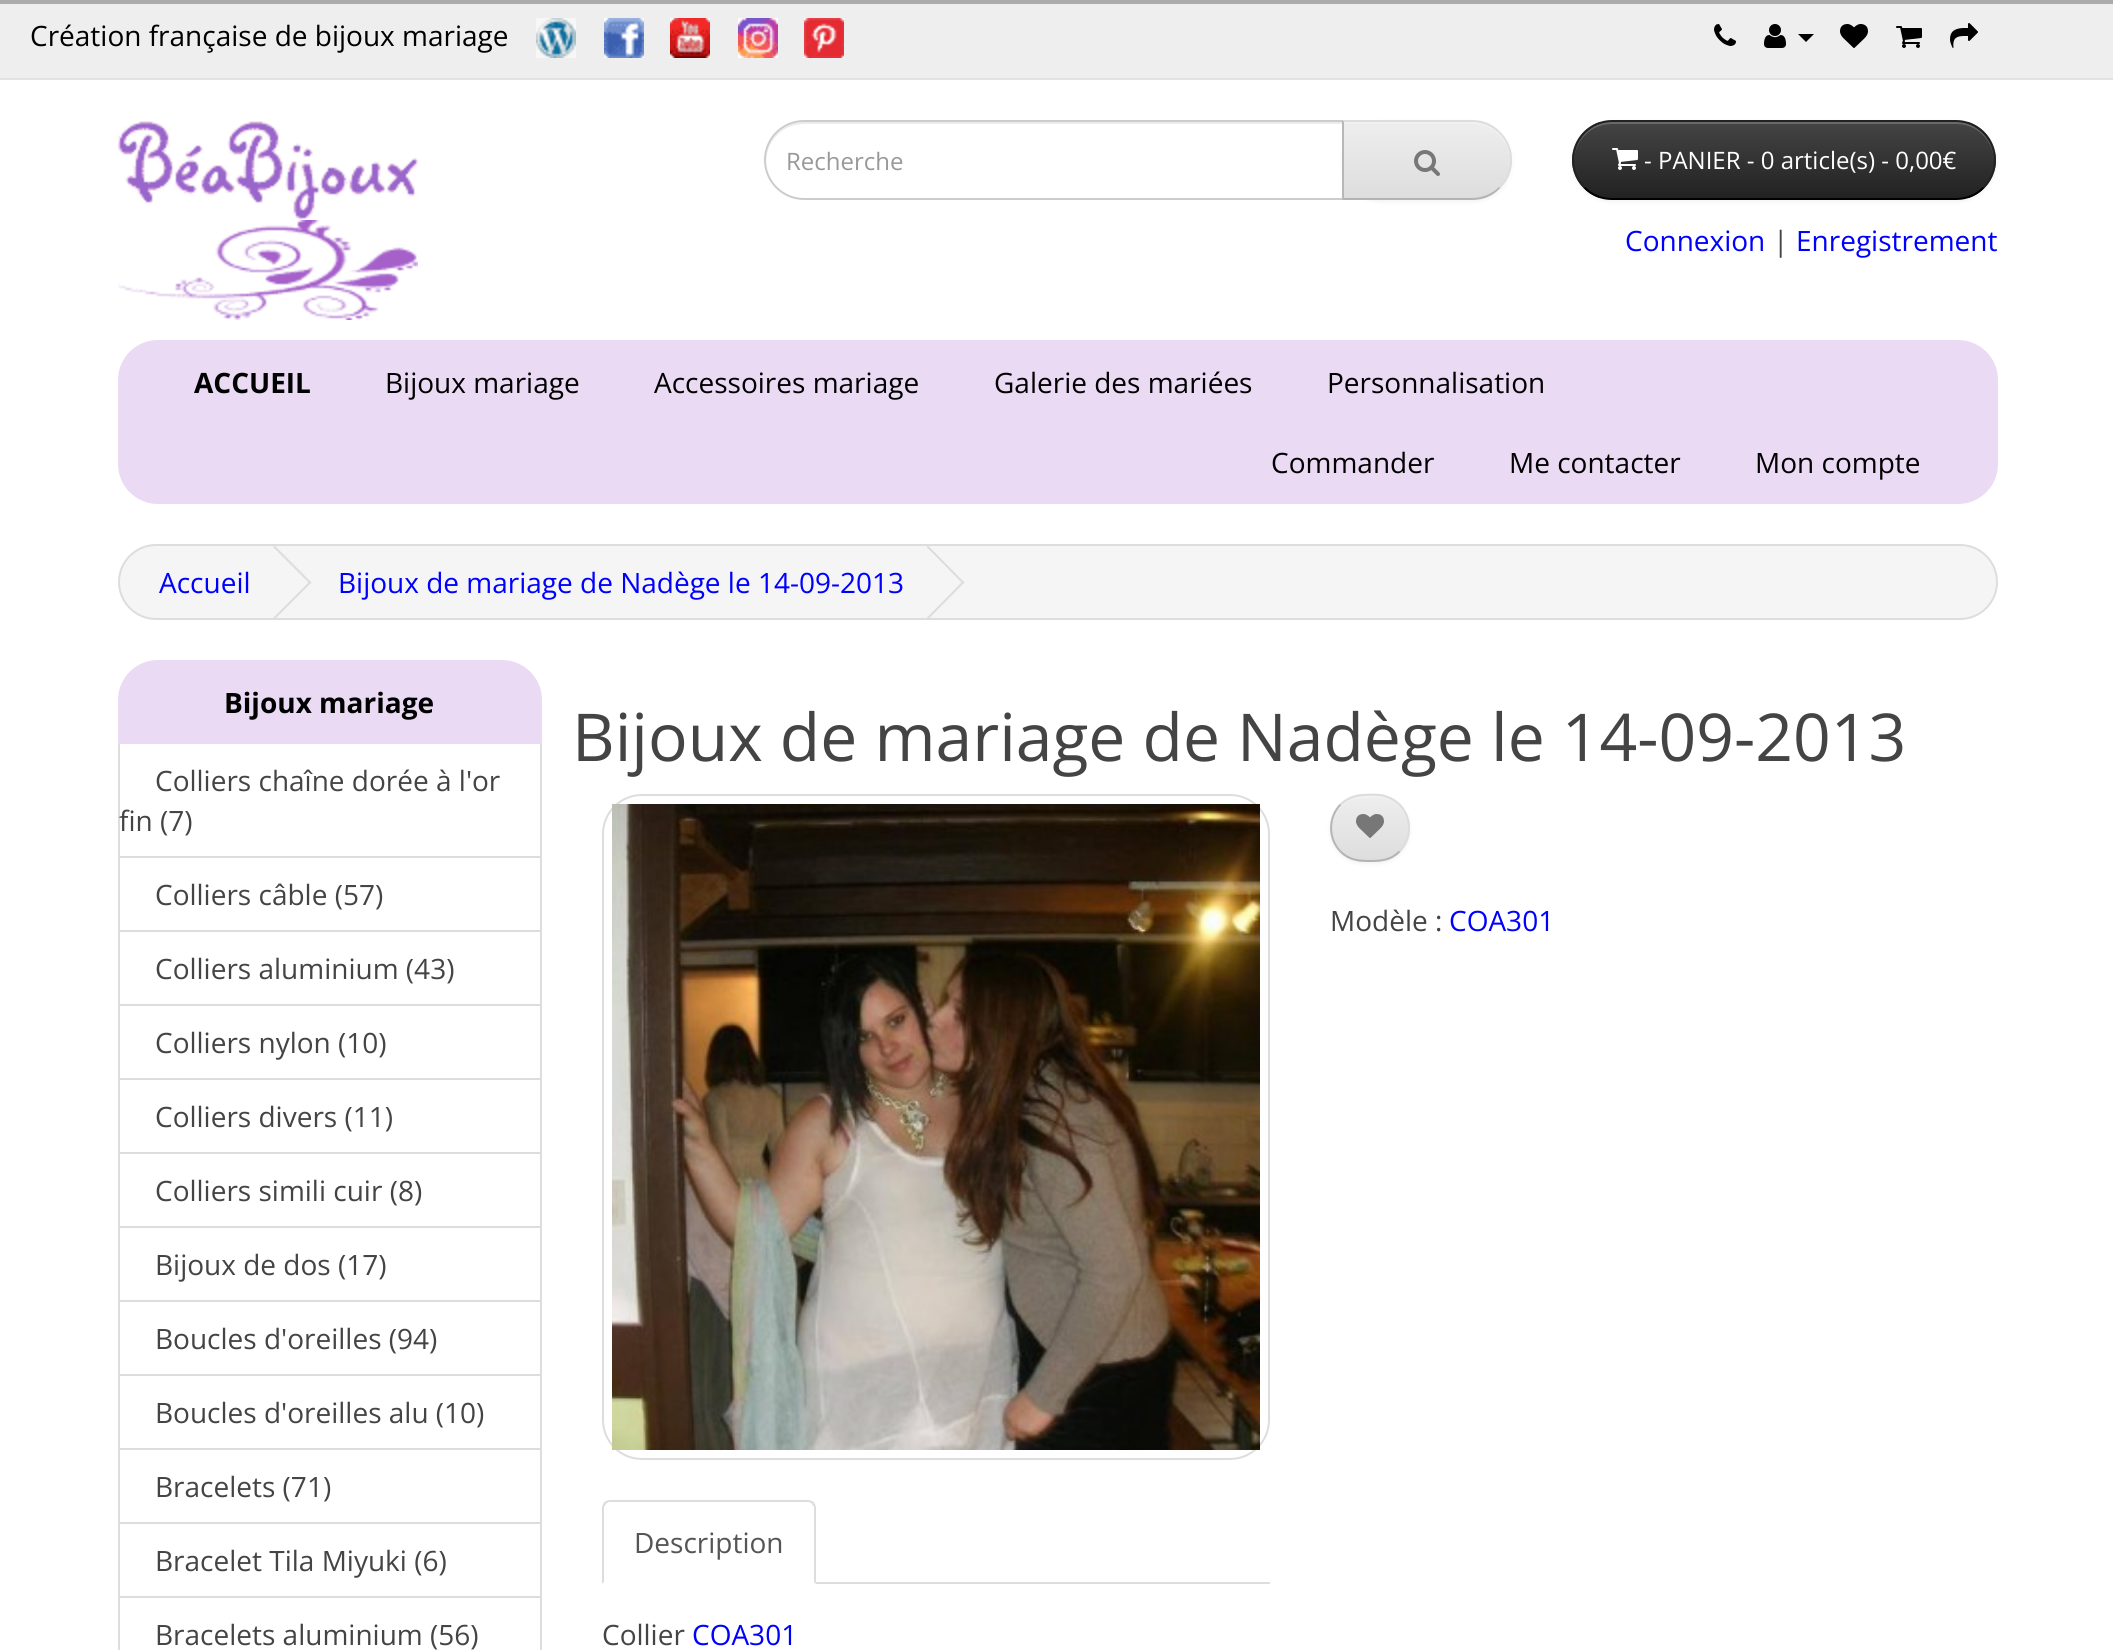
#include <cairo.h>
#include <math.h>
#include <stddef.h>

typedef struct { double x, y; const char *s; } line_t;
typedef struct { double x, y, w, h; unsigned color; } box_t;

static void ink(cairo_t *ctx, unsigned color) {
    cairo_set_source_rgb(ctx, (color >> 16) / 255.0, (color >> 8 & 255) / 255.0, (color & 255) / 255.0);
}

static void round_path(cairo_t *ctx, double x, double y, double w, double h, double r) {
    cairo_new_sub_path(ctx);
    cairo_arc(ctx, x + w - r, y + h - r, r, 0, M_PI / 2);
    cairo_arc(ctx, x + r, y + h - r, r, M_PI / 2, M_PI);
    cairo_arc(ctx, x + r, y + r, r, M_PI, 1.5 * M_PI);
    cairo_arc(ctx, x + w - r, y + r, r, 1.5 * M_PI, 2 * M_PI);
    cairo_close_path(ctx);
}

static void blur_box(cairo_t *ctx, double x, double y, double w, double h, double r, double blur, double alpha) {
    cairo_push_group_with_content(ctx, CAIRO_CONTENT_ALPHA);
    cairo_set_operator(ctx, CAIRO_OPERATOR_SOURCE);
    for (int i = 15; i >= -15 && fmin(w, h) + blur * i / 3 > 0; i -= 2) {
        double e = blur * i / 6;
        cairo_set_source_rgba(ctx, 0, 0, 0, alpha * erfc((i - 1) / 8.5) / 2);
        round_path(ctx, x - e, y - e, w + 2 * e, h + 2 * e, fmax(0, fmin(r + e + blur * .6, fmin(w, h) / 2 + e)));
        cairo_fill(ctx);
    }
    cairo_pattern_t *soft = cairo_pop_group(ctx);
    cairo_mask(ctx, soft);
    cairo_pattern_destroy(soft);
}

static void paste(cairo_t *ctx, const char *path, double x, double y, double w, double h) {
    cairo_surface_t *image = cairo_image_surface_create_from_png(path);
    cairo_save(ctx);
    cairo_set_source_surface(ctx, image, x, y);
    cairo_rectangle(ctx, x, y, w, h);
    cairo_fill(ctx);
    cairo_restore(ctx);
    cairo_surface_destroy(image);
}

int main(void) {
    cairo_surface_t *surface = cairo_image_surface_create(CAIRO_FORMAT_RGB24, 2113, 1650);
    cairo_t *ctx = cairo_create(surface);
    cairo_font_options_t *options = cairo_font_options_create();
    cairo_font_options_set_hint_metrics(options, CAIRO_HINT_METRICS_OFF);
    cairo_font_options_set_hint_style(options, CAIRO_HINT_STYLE_NONE);
    cairo_set_font_options(ctx, options);
    cairo_set_miter_limit(ctx, 4);
    cairo_pattern_t *gradient;
    ink(ctx, 0xFFFFFF);
    cairo_paint(ctx);
    {
        static const box_t items[] = {
            {0, 4, 2113, 74, 0xEEEEEE},
            {0, 78, 2113, 2, 0xE2E2E2},
            {0, 0, 2113, 4, 0xABABAB},
        };
        for (size_t i = 0; i < sizeof items / sizeof *items; i++) {
            ink(ctx, items[i].color);
            cairo_rectangle(ctx, items[i].x, items[i].y, items[i].w, items[i].h);
            cairo_fill(ctx);
        }
    }
    cairo_select_font_face(ctx, "Open Sans", CAIRO_FONT_SLANT_NORMAL, CAIRO_FONT_WEIGHT_NORMAL);
    cairo_set_font_size(ctx, 28);
    ink(ctx, 0x000000);
    cairo_move_to(ctx, 30, 46);
    cairo_show_text(ctx, "Création française de bijoux mariage");
    paste(ctx, "media/1.png", 536, 18, 40, 40);
    paste(ctx, "media/2.png", 604, 18, 40, 40);
    paste(ctx, "media/3.png", 670, 18, 40, 40);
    paste(ctx, "media/4.png", 738, 18, 40, 40);
    paste(ctx, "media/5.png", 804, 18, 40, 40);
    paste(ctx, "media/6.png", 1714, 24, 22, 22);
    paste(ctx, "media/7.png", 1764, 24, 22, 24);
    cairo_new_path(ctx);
    cairo_move_to(ctx, 1798, 34);
    cairo_line_to(ctx, 1814, 34);
    cairo_line_to(ctx, 1806, 42);
    cairo_close_path(ctx);
    cairo_fill(ctx);
    paste(ctx, "media/8.png", 1840, 24, 28, 24);
    paste(ctx, "media/9.png", 1896, 26, 26, 22);
    paste(ctx, "media/10.png", 1950, 23, 28, 25);
    paste(ctx, "media/11.png", 118, 121, 300, 99);
    paste(ctx, "media/12.png", 118, 220, 300, 100);
    ink(ctx, 0xECECEC);
    cairo_new_path(ctx);
    cairo_move_to(ctx, 804, 124);
    cairo_line_to(ctx, 1342, 124);
    cairo_line_to(ctx, 1342, 122);
    cairo_line_to(ctx, 804, 122);
    cairo_curve_to(ctx, 783, 122, 765, 140, 766, 161);
    cairo_curve_to(ctx, 767, 140, 783, 124, 804, 124);
    cairo_close_path(ctx);
    cairo_fill(ctx);
    cairo_new_path(ctx);
    cairo_move_to(ctx, 804, 121);
    cairo_line_to(ctx, 1343, 121);
    cairo_line_to(ctx, 1343, 199);
    cairo_line_to(ctx, 804, 199);
    cairo_curve_to(ctx, 782.5, 199, 765, 181.5, 765, 160);
    cairo_curve_to(ctx, 765, 138.5, 782.5, 121, 804, 121);
    cairo_close_path(ctx);
    ink(ctx, 0xCCCCCC);
    cairo_stroke(ctx);
    cairo_set_font_size(ctx, 24);
    ink(ctx, 0x999999);
    cairo_move_to(ctx, 786, 170);
    cairo_show_text(ctx, "Recherche");
    ink(ctx, 0x000000);
    blur_box(ctx, 1342, 122, 170, 80, 40, 2, 0.05);
    cairo_save(ctx);
    cairo_new_path(ctx);
    cairo_move_to(ctx, 1342, 120);
    cairo_line_to(ctx, 1472, 120);
    cairo_curve_to(ctx, 1494, 120, 1512, 138, 1512, 160);
    cairo_curve_to(ctx, 1512, 182, 1494, 200, 1472, 200);
    cairo_line_to(ctx, 1342, 200);
    cairo_close_path(ctx);
    cairo_clip(ctx);
    gradient = cairo_pattern_create_linear(1427, 122, 1427, 198);
    cairo_pattern_add_color_stop_rgba(gradient, 0, 0.933, 0.933, 0.933, 1);
    cairo_pattern_add_color_stop_rgba(gradient, 1, 0.867, 0.867, 0.867, 1);
    cairo_set_source(ctx, gradient);
    cairo_pattern_destroy(gradient);
    cairo_rectangle(ctx, 1344, 122, 168, 76);
    cairo_fill(ctx);
    cairo_restore(ctx);
    cairo_set_source_rgba(ctx, 1, 1, 1, 0.2);
    cairo_new_path(ctx);
    cairo_move_to(ctx, 1344, 124);
    cairo_line_to(ctx, 1472, 124);
    cairo_curve_to(ctx, 1493, 124, 1509, 140, 1510, 161);
    cairo_line_to(ctx, 1510, 160);
    cairo_curve_to(ctx, 1510, 139, 1493, 122, 1472, 122);
    cairo_line_to(ctx, 1344, 122);
    cairo_close_path(ctx);
    cairo_fill(ctx);
    ink(ctx, 0xDDDDDD);
    cairo_new_path(ctx);
    cairo_move_to(ctx, 1342, 120);
    cairo_line_to(ctx, 1344, 122);
    cairo_line_to(ctx, 1472, 122);
    cairo_curve_to(ctx, 1482, 122, 1492, 126, 1499, 133);
    cairo_line_to(ctx, 1500, 132);
    cairo_curve_to(ctx, 1493, 124, 1483, 120, 1472, 120);
    cairo_close_path(ctx);
    cairo_fill(ctx);
    cairo_new_path(ctx);
    cairo_move_to(ctx, 1500, 132);
    cairo_curve_to(ctx, 1516, 147, 1516, 173, 1500, 188);
    cairo_line_to(ctx, 1499, 187);
    cairo_curve_to(ctx, 1514, 172, 1514, 148, 1499, 133);
    cairo_close_path(ctx);
    cairo_fill(ctx);
    ink(ctx, 0xB3B3B3);
    cairo_new_path(ctx);
    cairo_move_to(ctx, 1472, 200);
    cairo_curve_to(ctx, 1483, 200, 1493, 196, 1500, 188);
    cairo_line_to(ctx, 1499, 187);
    cairo_curve_to(ctx, 1492, 194, 1482, 198, 1472, 198);
    cairo_line_to(ctx, 1344, 198);
    cairo_line_to(ctx, 1342, 200);
    cairo_close_path(ctx);
    cairo_fill(ctx);
    ink(ctx, 0xB7B7B7);
    cairo_new_path(ctx);
    cairo_move_to(ctx, 1342, 120);
    cairo_line_to(ctx, 1342, 200);
    cairo_line_to(ctx, 1344, 198);
    cairo_line_to(ctx, 1344, 122);
    cairo_close_path(ctx);
    cairo_fill(ctx);
    paste(ctx, "media/13.png", 1414, 150, 26, 26);
    ink(ctx, 0x000000);
    blur_box(ctx, 1572, 122, 424, 80, 40, 2, 0.05);
    cairo_save(ctx);
    round_path(ctx, 1572, 120, 424, 80, 40);
    cairo_clip(ctx);
    gradient = cairo_pattern_create_linear(1784, 122, 1784, 198);
    cairo_pattern_add_color_stop_rgba(gradient, 0, 0.267, 0.267, 0.267, 1);
    cairo_pattern_add_color_stop_rgba(gradient, 1, 0.133, 0.133, 0.133, 1);
    cairo_set_source(ctx, gradient);
    cairo_pattern_destroy(gradient);
    cairo_rectangle(ctx, 1572, 122, 424, 76);
    cairo_fill(ctx);
    cairo_restore(ctx);
    cairo_set_source_rgba(ctx, 1, 1, 1, 0.2);
    cairo_new_path(ctx);
    cairo_move_to(ctx, 1612, 124);
    cairo_line_to(ctx, 1956, 124);
    cairo_curve_to(ctx, 1977, 124, 1993, 140, 1994, 161);
    cairo_line_to(ctx, 1994, 160);
    cairo_curve_to(ctx, 1994, 139, 1977, 122, 1956, 122);
    cairo_line_to(ctx, 1612, 122);
    cairo_curve_to(ctx, 1591, 122, 1574, 139, 1574, 160);
    cairo_line_to(ctx, 1574, 161);
    cairo_curve_to(ctx, 1575, 140, 1591, 124, 1612, 124);
    cairo_close_path(ctx);
    cairo_fill(ctx);
    cairo_new_path(ctx);
    cairo_move_to(ctx, 1983.5, 187.5);
    cairo_curve_to(ctx, 1976.5, 195, 1966.5, 199, 1956, 199);
    cairo_line_to(ctx, 1612, 199);
    cairo_curve_to(ctx, 1601.5, 199, 1591.5, 195, 1584.5, 187.5);
    ink(ctx, 0x000000);
    cairo_stroke(ctx);
    cairo_new_path(ctx);
    cairo_move_to(ctx, 1584.5, 187.5);
    cairo_curve_to(ctx, 1575.5, 178.5, 1571, 165, 1574, 152.5);
    cairo_curve_to(ctx, 1577.5, 134.5, 1593.5, 121, 1612, 121);
    cairo_line_to(ctx, 1956, 121);
    cairo_curve_to(ctx, 1974.5, 121, 1990.5, 134.5, 1994, 152.5);
    cairo_curve_to(ctx, 1997, 165, 1992.5, 178.5, 1983.5, 187.5);
    ink(ctx, 0x222222);
    cairo_stroke(ctx);
    paste(ctx, "media/14.png", 1612, 148, 26, 22);
    ink(ctx, 0xFFFFFF);
    cairo_move_to(ctx, 1644, 169);
    cairo_show_text(ctx, "- PANIER - 0 article(s) - 0,00€");
    cairo_set_font_size(ctx, 28);
    ink(ctx, 0x0000FF);
    cairo_move_to(ctx, 1625, 251);
    cairo_show_text(ctx, "Connexion");
    ink(ctx, 0x444444);
    cairo_move_to(ctx, 1773, 251);
    cairo_show_text(ctx, "|");
    ink(ctx, 0x0000FF);
    cairo_move_to(ctx, 1796, 251);
    cairo_show_text(ctx, "Enregistrement");
    ink(ctx, 0xEADAF4);
    round_path(ctx, 118, 340, 1880, 164, 40);
    cairo_fill(ctx);
    cairo_select_font_face(ctx, "Open Sans", CAIRO_FONT_SLANT_NORMAL, CAIRO_FONT_WEIGHT_BOLD);
    ink(ctx, 0x000000);
    cairo_move_to(ctx, 194, 393);
    cairo_show_text(ctx, "ACCUEIL");
    cairo_select_font_face(ctx, "Open Sans", CAIRO_FONT_SLANT_NORMAL, CAIRO_FONT_WEIGHT_NORMAL);
    {
        static const line_t items[] = {
            {385, 393, "Bijoux mariage"},
            {654, 393, "Accessoires mariage"},
            {994, 393, "Galerie des mariées"},
            {1327, 393, "Personnalisation"},
            {1271, 473, "Commander"},
            {1509, 473, "Me contacter"},
            {1755, 473, "Mon compte"},
        };
        for (size_t i = 0; i < sizeof items / sizeof *items; i++) {
            cairo_move_to(ctx, items[i].x, items[i].y);
            cairo_show_text(ctx, items[i].s);
        }
    }
    ink(ctx, 0xF5F5F5);
    round_path(ctx, 119, 545, 1878, 74, 37);
    cairo_fill_preserve(ctx);
    ink(ctx, 0xDDDDDD);
    cairo_stroke(ctx);
    ink(ctx, 0x0000FF);
    cairo_move_to(ctx, 159, 593);
    cairo_show_text(ctx, "Accueil");
    ink(ctx, 0xDDDDDD);
    cairo_new_path(ctx);
    cairo_move_to(ctx, 273, 547);
    cairo_line_to(ctx, 274.5, 545.5);
    cairo_line_to(ctx, 311.5, 582.5);
    cairo_line_to(ctx, 310, 584);
    cairo_close_path(ctx);
    cairo_fill(ctx);
    cairo_new_path(ctx);
    cairo_move_to(ctx, 273, 618);
    cairo_line_to(ctx, 310, 581);
    cairo_line_to(ctx, 311.5, 582.5);
    cairo_line_to(ctx, 274.5, 619.5);
    cairo_close_path(ctx);
    cairo_fill(ctx);
    ink(ctx, 0x0000FF);
    cairo_move_to(ctx, 338, 593);
    cairo_show_text(ctx, "Bijoux de mariage de Nadège le 14-09-2013");
    ink(ctx, 0xDDDDDD);
    cairo_new_path(ctx);
    cairo_move_to(ctx, 926.5, 547);
    cairo_line_to(ctx, 928, 545.5);
    cairo_line_to(ctx, 964.5, 582.5);
    cairo_line_to(ctx, 963, 584);
    cairo_close_path(ctx);
    cairo_fill(ctx);
    cairo_new_path(ctx);
    cairo_move_to(ctx, 926.5, 618);
    cairo_line_to(ctx, 963, 581);
    cairo_line_to(ctx, 964.5, 582.5);
    cairo_line_to(ctx, 928, 619.5);
    cairo_close_path(ctx);
    cairo_fill(ctx);
    cairo_rectangle(ctx, 119, 743, 422, 114);
    cairo_stroke(ctx);
    ink(ctx, 0xEADAF4);
    cairo_new_path(ctx);
    cairo_move_to(ctx, 158, 661);
    cairo_line_to(ctx, 502, 661);
    cairo_curve_to(ctx, 523.5, 661, 541, 678.5, 541, 700);
    cairo_line_to(ctx, 541, 743);
    cairo_line_to(ctx, 119, 743);
    cairo_line_to(ctx, 119, 700);
    cairo_curve_to(ctx, 119, 678.5, 136.5, 661, 158, 661);
    cairo_close_path(ctx);
    cairo_fill_preserve(ctx);
    cairo_stroke(ctx);
    cairo_select_font_face(ctx, "Open Sans", CAIRO_FONT_SLANT_NORMAL, CAIRO_FONT_WEIGHT_BOLD);
    ink(ctx, 0x000000);
    cairo_move_to(ctx, 224, 713);
    cairo_show_text(ctx, "Bijoux mariage");
    cairo_select_font_face(ctx, "Open Sans", CAIRO_FONT_SLANT_NORMAL, CAIRO_FONT_WEIGHT_NORMAL);
    ink(ctx, 0x444444);
    cairo_move_to(ctx, 155, 791);
    cairo_show_text(ctx, "Colliers chaîne dorée à l'or");
    cairo_move_to(ctx, 119, 831);
    cairo_show_text(ctx, "fin (7)");
    cairo_rectangle(ctx, 119, 857, 422, 74);
    ink(ctx, 0xDDDDDD);
    cairo_stroke(ctx);
    ink(ctx, 0x444444);
    cairo_move_to(ctx, 155, 905);
    cairo_show_text(ctx, "Colliers câble (57)");
    cairo_rectangle(ctx, 119, 931, 422, 74);
    ink(ctx, 0xDDDDDD);
    cairo_stroke(ctx);
    ink(ctx, 0x444444);
    cairo_move_to(ctx, 155, 979);
    cairo_show_text(ctx, "Colliers aluminium (43)");
    cairo_rectangle(ctx, 119, 1005, 422, 74);
    ink(ctx, 0xDDDDDD);
    cairo_stroke(ctx);
    ink(ctx, 0x444444);
    cairo_move_to(ctx, 155, 1053);
    cairo_show_text(ctx, "Colliers nylon (10)");
    cairo_rectangle(ctx, 119, 1079, 422, 74);
    ink(ctx, 0xDDDDDD);
    cairo_stroke(ctx);
    ink(ctx, 0x444444);
    cairo_move_to(ctx, 155, 1127);
    cairo_show_text(ctx, "Colliers divers (11)");
    cairo_rectangle(ctx, 119, 1153, 422, 74);
    ink(ctx, 0xDDDDDD);
    cairo_stroke(ctx);
    ink(ctx, 0x444444);
    cairo_move_to(ctx, 155, 1201);
    cairo_show_text(ctx, "Colliers simili cuir (8)");
    cairo_rectangle(ctx, 119, 1227, 422, 74);
    ink(ctx, 0xDDDDDD);
    cairo_stroke(ctx);
    ink(ctx, 0x444444);
    cairo_move_to(ctx, 155, 1275);
    cairo_show_text(ctx, "Bijoux de dos (17)");
    cairo_rectangle(ctx, 119, 1301, 422, 74);
    ink(ctx, 0xDDDDDD);
    cairo_stroke(ctx);
    ink(ctx, 0x444444);
    cairo_move_to(ctx, 155, 1349);
    cairo_show_text(ctx, "Boucles d'oreilles (94)");
    cairo_rectangle(ctx, 119, 1375, 422, 74);
    ink(ctx, 0xDDDDDD);
    cairo_stroke(ctx);
    ink(ctx, 0x444444);
    cairo_move_to(ctx, 155, 1423);
    cairo_show_text(ctx, "Boucles d'oreilles alu (10)");
    cairo_rectangle(ctx, 119, 1449, 422, 74);
    ink(ctx, 0xDDDDDD);
    cairo_stroke(ctx);
    ink(ctx, 0x444444);
    cairo_move_to(ctx, 155, 1497);
    cairo_show_text(ctx, "Bracelets (71)");
    cairo_rectangle(ctx, 119, 1523, 422, 74);
    ink(ctx, 0xDDDDDD);
    cairo_stroke(ctx);
    ink(ctx, 0x444444);
    cairo_move_to(ctx, 155, 1571);
    cairo_show_text(ctx, "Bracelet Tila Miyuki (6)");
    cairo_rectangle(ctx, 119, 1597, 422, 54);
    ink(ctx, 0xDDDDDD);
    cairo_stroke(ctx);
    ink(ctx, 0x444444);
    cairo_move_to(ctx, 155, 1645);
    cairo_show_text(ctx, "Bracelets aluminium (56)");
    cairo_set_font_size(ctx, 66);
    cairo_move_to(ctx, 572, 761);
    cairo_show_text(ctx, "Bijoux de mariage de Nadège le 14-09-2013");
    ink(ctx, 0x000000);
    blur_box(ctx, 1330, 796, 80, 68, 34, 2, 0.05);
    ink(ctx, 0xE7E7E7);
    round_path(ctx, 1330, 794, 80, 68, 34);
    cairo_fill(ctx);
    cairo_save(ctx);
    round_path(ctx, 1330, 794, 80, 68, 34);
    cairo_clip(ctx);
    gradient = cairo_pattern_create_linear(1370, 796, 1370, 860);
    cairo_pattern_add_color_stop_rgba(gradient, 0, 0.933, 0.933, 0.933, 1);
    cairo_pattern_add_color_stop_rgba(gradient, 1, 0.867, 0.867, 0.867, 1);
    cairo_set_source(ctx, gradient);
    cairo_pattern_destroy(gradient);
    cairo_rectangle(ctx, 1330, 796, 80, 64);
    cairo_fill(ctx);
    cairo_restore(ctx);
    cairo_set_source_rgba(ctx, 1, 1, 1, 0.2);
    cairo_new_path(ctx);
    cairo_move_to(ctx, 1364, 798);
    cairo_line_to(ctx, 1376, 798);
    cairo_curve_to(ctx, 1394, 798, 1407, 811, 1408, 829);
    cairo_curve_to(ctx, 1408, 816, 1401, 804, 1388, 799);
    cairo_curve_to(ctx, 1383, 796, 1378, 796, 1372, 796);
    cairo_curve_to(ctx, 1367, 796, 1362, 796, 1358, 797);
    cairo_curve_to(ctx, 1342, 800, 1332, 814, 1332, 829);
    cairo_curve_to(ctx, 1333, 811, 1346, 798, 1364, 798);
    cairo_close_path(ctx);
    cairo_fill(ctx);
    cairo_new_path(ctx);
    cairo_move_to(ctx, 1340.5, 804.5);
    cairo_curve_to(ctx, 1344.5, 801, 1349, 798, 1354.5, 796.5);
    cairo_curve_to(ctx, 1361, 794.5, 1375.5, 794, 1382.5, 795.5);
    cairo_curve_to(ctx, 1386.5, 796.5, 1390.5, 798, 1394.5, 800.5);
    cairo_curve_to(ctx, 1411.5, 812, 1414, 837, 1399.5, 851.5);
    ink(ctx, 0xDDDDDD);
    cairo_stroke(ctx);
    cairo_new_path(ctx);
    cairo_move_to(ctx, 1399.5, 851.5);
    cairo_curve_to(ctx, 1391, 860, 1381.5, 861, 1370, 861);
    cairo_curve_to(ctx, 1358.5, 861, 1349, 860, 1340.5, 851.5);
    ink(ctx, 0xB3B3B3);
    cairo_stroke(ctx);
    cairo_new_path(ctx);
    cairo_move_to(ctx, 1340.5, 851.5);
    cairo_curve_to(ctx, 1328, 838.5, 1328, 817.5, 1340.5, 804.5);
    ink(ctx, 0xB7B7B7);
    cairo_stroke(ctx);
    paste(ctx, "media/15.png", 1356, 814, 28, 24);
    cairo_set_font_size(ctx, 28);
    ink(ctx, 0x444444);
    cairo_move_to(ctx, 1330, 931);
    cairo_show_text(ctx, "Modèle :");
    ink(ctx, 0x0000FF);
    cairo_move_to(ctx, 1449, 931);
    cairo_show_text(ctx, "COA301");
    round_path(ctx, 603, 795, 666, 664, 39);
    ink(ctx, 0xDDDDDD);
    cairo_stroke(ctx);
    paste(ctx, "media/16.png", 612, 804, 648, 646);
    cairo_rectangle(ctx, 816, 1582, 454, 2);
    cairo_fill(ctx);
    cairo_new_path(ctx);
    cairo_move_to(ctx, 610, 1500);
    cairo_curve_to(ctx, 608, 1500, 606, 1501, 604, 1502);
    cairo_line_to(ctx, 606, 1504);
    cairo_curve_to(ctx, 607, 1503, 608, 1502, 610, 1502);
    cairo_line_to(ctx, 808, 1502);
    cairo_curve_to(ctx, 810, 1502, 811, 1503, 812, 1504);
    cairo_line_to(ctx, 814, 1502);
    cairo_curve_to(ctx, 812, 1501, 810, 1500, 808, 1500);
    cairo_close_path(ctx);
    cairo_fill(ctx);
    cairo_new_path(ctx);
    cairo_move_to(ctx, 816, 1584);
    cairo_line_to(ctx, 816, 1508);
    cairo_curve_to(ctx, 816, 1506, 815, 1504, 814, 1502);
    cairo_line_to(ctx, 812, 1504);
    cairo_line_to(ctx, 814, 1507);
    cairo_line_to(ctx, 814, 1582);
    cairo_close_path(ctx);
    cairo_fill(ctx);
    cairo_new_path(ctx);
    cairo_move_to(ctx, 602, 1584);
    cairo_line_to(ctx, 604, 1582);
    cairo_line_to(ctx, 604, 1507);
    cairo_line_to(ctx, 606, 1504);
    cairo_line_to(ctx, 604, 1502);
    cairo_curve_to(ctx, 603, 1504, 602, 1506, 602, 1508);
    cairo_close_path(ctx);
    cairo_fill(ctx);
    ink(ctx, 0x555555);
    cairo_move_to(ctx, 634, 1553);
    cairo_show_text(ctx, "Description");
    ink(ctx, 0x444444);
    cairo_move_to(ctx, 602, 1645);
    cairo_show_text(ctx, "Collier");
    ink(ctx, 0x0000FF);
    cairo_move_to(ctx, 692, 1645);
    cairo_show_text(ctx, "COA301");
    cairo_surface_write_to_png(surface, "image.png");
    cairo_font_options_destroy(options);
    cairo_destroy(ctx);
    cairo_surface_destroy(surface);
    return 0;
}
